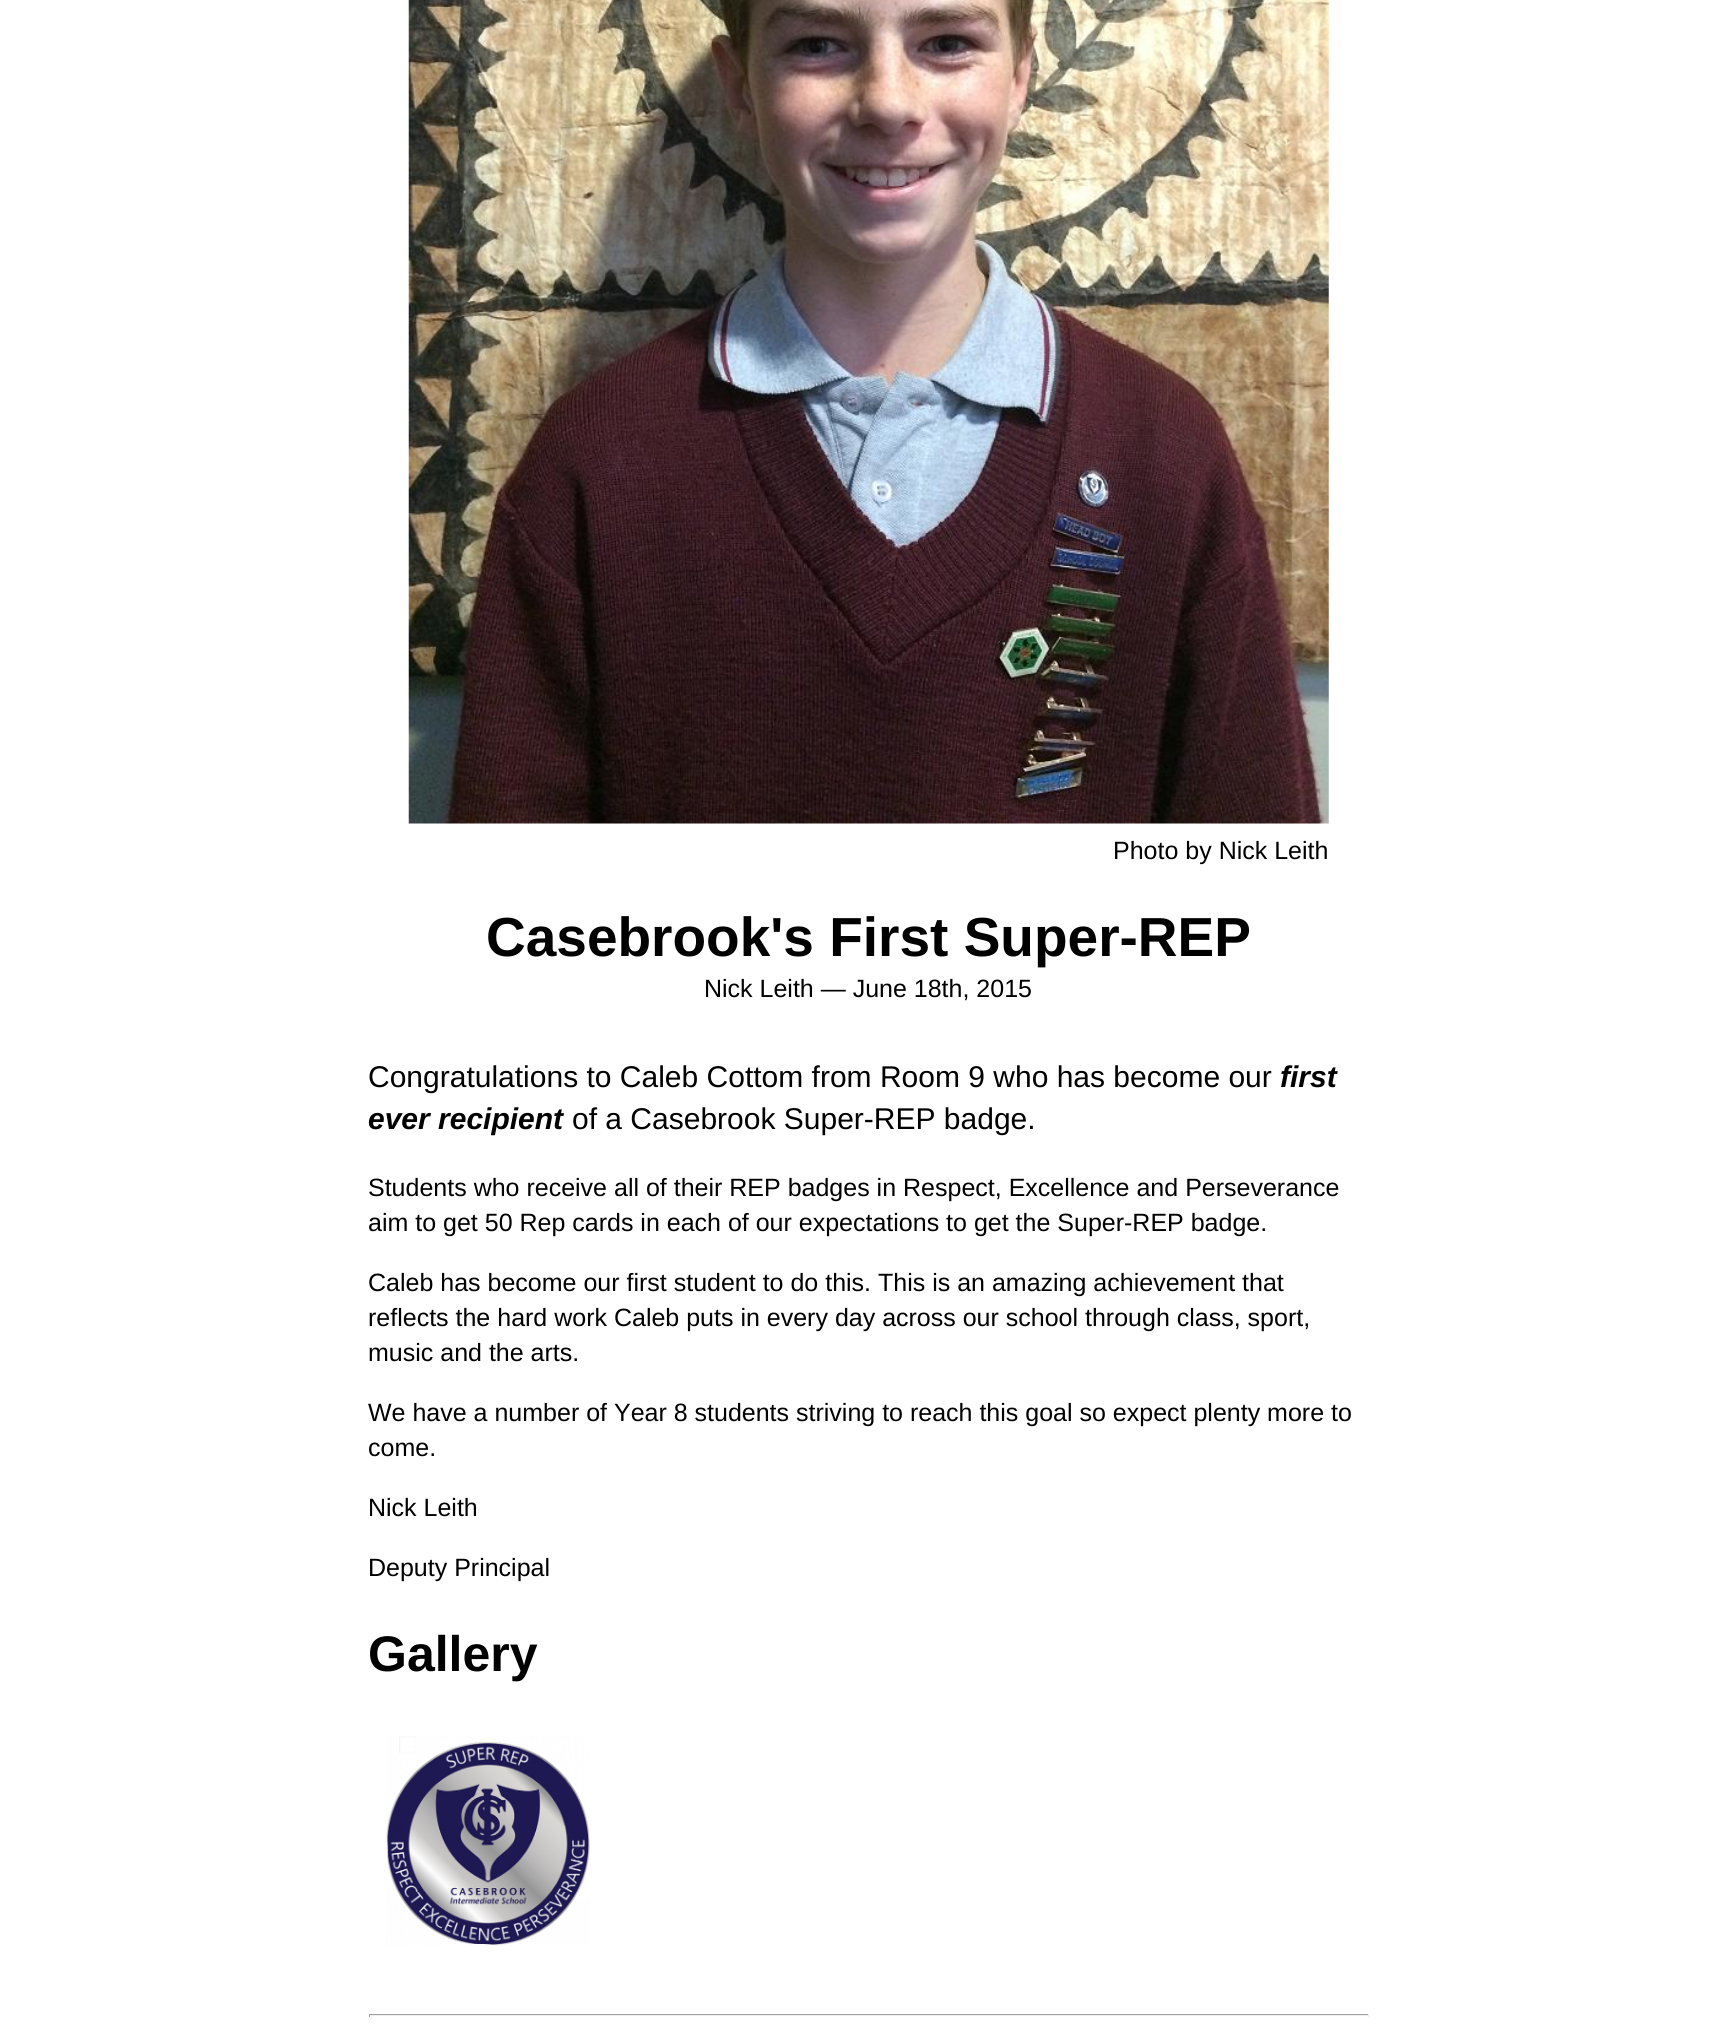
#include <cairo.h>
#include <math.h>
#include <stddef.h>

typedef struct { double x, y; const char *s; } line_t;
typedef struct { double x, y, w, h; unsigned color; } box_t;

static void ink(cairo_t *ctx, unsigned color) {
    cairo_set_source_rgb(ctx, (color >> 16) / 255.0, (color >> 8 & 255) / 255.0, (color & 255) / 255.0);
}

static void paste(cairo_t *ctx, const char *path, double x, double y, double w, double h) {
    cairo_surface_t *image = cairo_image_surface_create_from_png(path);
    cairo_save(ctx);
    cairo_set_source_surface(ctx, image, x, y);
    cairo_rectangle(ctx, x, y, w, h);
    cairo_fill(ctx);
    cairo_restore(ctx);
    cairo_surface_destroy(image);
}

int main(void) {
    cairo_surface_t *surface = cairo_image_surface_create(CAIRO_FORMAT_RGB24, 1736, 2026);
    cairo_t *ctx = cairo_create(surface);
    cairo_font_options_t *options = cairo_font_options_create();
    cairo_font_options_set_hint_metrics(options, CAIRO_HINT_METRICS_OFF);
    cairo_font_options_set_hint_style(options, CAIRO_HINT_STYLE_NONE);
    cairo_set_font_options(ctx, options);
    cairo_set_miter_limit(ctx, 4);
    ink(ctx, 0xFFFFFF);
    cairo_paint(ctx);
    paste(ctx, "media/1.png", 408, 0, 921, 824);
    cairo_select_font_face(ctx, "Liberation Sans", CAIRO_FONT_SLANT_NORMAL, CAIRO_FONT_WEIGHT_NORMAL);
    cairo_set_font_size(ctx, 25);
    ink(ctx, 0x000000);
    cairo_move_to(ctx, 1113, 859);
    cairo_show_text(ctx, "Photo by Nick Leith");
    cairo_select_font_face(ctx, "Liberation Sans", CAIRO_FONT_SLANT_NORMAL, CAIRO_FONT_WEIGHT_BOLD);
    cairo_set_font_size(ctx, 55);
    cairo_move_to(ctx, 486, 956);
    cairo_show_text(ctx, "Casebrook's First Super-REP");
    cairo_select_font_face(ctx, "Liberation Sans", CAIRO_FONT_SLANT_NORMAL, CAIRO_FONT_WEIGHT_NORMAL);
    cairo_set_font_size(ctx, 25);
    cairo_move_to(ctx, 704, 997);
    cairo_show_text(ctx, "Nick Leith — June 18th, 2015");
    cairo_set_font_size(ctx, 30);
    cairo_move_to(ctx, 368, 1087);
    cairo_show_text(ctx, "Congratulations to Caleb Cottom from Room 9 who has become our");
    cairo_select_font_face(ctx, "Liberation Sans", CAIRO_FONT_SLANT_ITALIC, CAIRO_FONT_WEIGHT_BOLD);
    cairo_move_to(ctx, 1280, 1087);
    cairo_show_text(ctx, "first");
    cairo_move_to(ctx, 368, 1129);
    cairo_show_text(ctx, "ever recipient");
    cairo_select_font_face(ctx, "Liberation Sans", CAIRO_FONT_SLANT_NORMAL, CAIRO_FONT_WEIGHT_NORMAL);
    cairo_move_to(ctx, 572, 1129);
    cairo_show_text(ctx, "of a Casebrook Super-REP badge.");
    cairo_set_font_size(ctx, 25);
    {
        static const line_t items[] = {
            {368, 1196, "Students who receive all of their REP badges in Respect, Excellence and Perseverance"},
            {368, 1231, "aim to get 50 Rep cards in each of our expectations to get the Super-REP badge."},
            {368, 1291, "Caleb has become our first student to do this. This is an amazing achievement that"},
            {368, 1326, "reflects the hard work Caleb puts in every day across our school through class, sport,"},
            {368, 1361, "music and the arts."},
            {368, 1421, "We have a number of Year 8 students striving to reach this goal so expect plenty more to"},
            {368, 1456, "come."},
            {368, 1516, "Nick Leith"},
            {368, 1576, "Deputy Principal"},
        };
        for (size_t i = 0; i < sizeof items / sizeof *items; i++) {
            cairo_move_to(ctx, items[i].x, items[i].y);
            cairo_show_text(ctx, items[i].s);
        }
    }
    cairo_select_font_face(ctx, "Liberation Sans", CAIRO_FONT_SLANT_NORMAL, CAIRO_FONT_WEIGHT_BOLD);
    cairo_set_font_size(ctx, 50);
    cairo_move_to(ctx, 368, 1671);
    cairo_show_text(ctx, "Gallery");
    paste(ctx, "media/2.png", 386, 1736, 204, 210);
    {
        static const box_t items[] = {
            {369, 2014, 1000, 1, 0x9F9F9F},
            {1368, 2014, 1, 3, 0xEEEEEE},
            {369, 2015, 1000, 1, 0xEEEEEE},
            {369, 2014, 1, 3, 0x9F9F9F},
        };
        for (size_t i = 0; i < sizeof items / sizeof *items; i++) {
            ink(ctx, items[i].color);
            cairo_rectangle(ctx, items[i].x, items[i].y, items[i].w, items[i].h);
            cairo_fill(ctx);
        }
    }
    cairo_surface_write_to_png(surface, "image.png");
    cairo_font_options_destroy(options);
    cairo_destroy(ctx);
    cairo_surface_destroy(surface);
    return 0;
}
